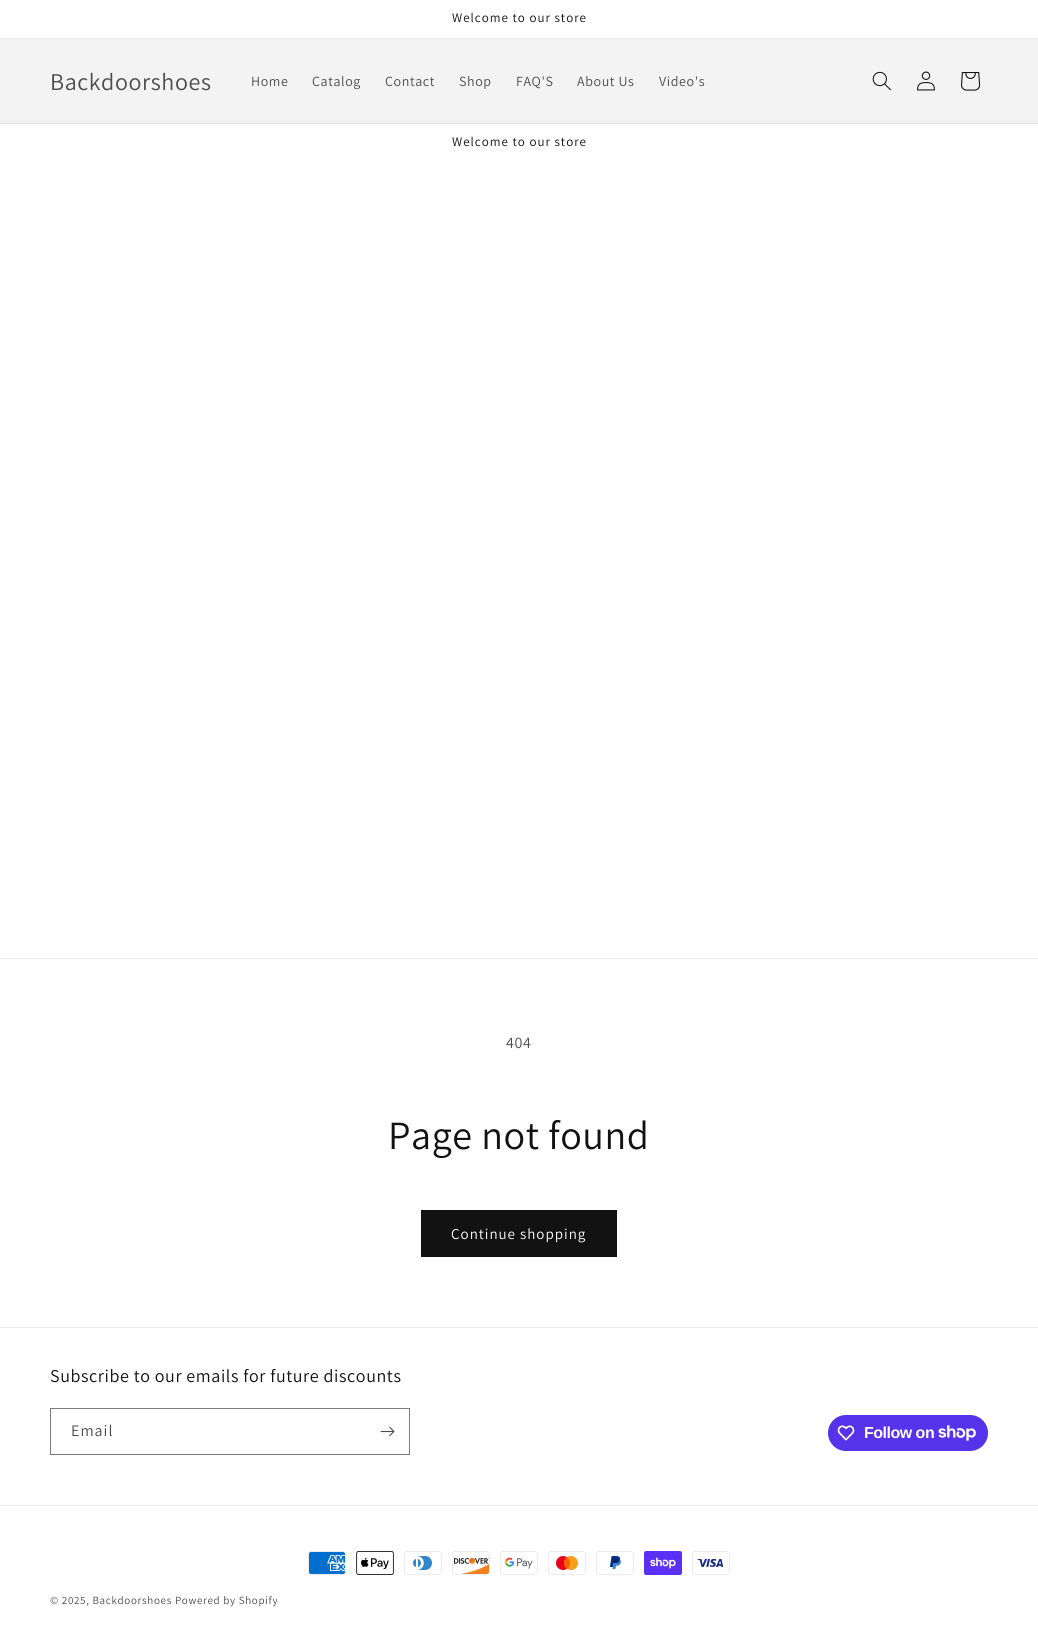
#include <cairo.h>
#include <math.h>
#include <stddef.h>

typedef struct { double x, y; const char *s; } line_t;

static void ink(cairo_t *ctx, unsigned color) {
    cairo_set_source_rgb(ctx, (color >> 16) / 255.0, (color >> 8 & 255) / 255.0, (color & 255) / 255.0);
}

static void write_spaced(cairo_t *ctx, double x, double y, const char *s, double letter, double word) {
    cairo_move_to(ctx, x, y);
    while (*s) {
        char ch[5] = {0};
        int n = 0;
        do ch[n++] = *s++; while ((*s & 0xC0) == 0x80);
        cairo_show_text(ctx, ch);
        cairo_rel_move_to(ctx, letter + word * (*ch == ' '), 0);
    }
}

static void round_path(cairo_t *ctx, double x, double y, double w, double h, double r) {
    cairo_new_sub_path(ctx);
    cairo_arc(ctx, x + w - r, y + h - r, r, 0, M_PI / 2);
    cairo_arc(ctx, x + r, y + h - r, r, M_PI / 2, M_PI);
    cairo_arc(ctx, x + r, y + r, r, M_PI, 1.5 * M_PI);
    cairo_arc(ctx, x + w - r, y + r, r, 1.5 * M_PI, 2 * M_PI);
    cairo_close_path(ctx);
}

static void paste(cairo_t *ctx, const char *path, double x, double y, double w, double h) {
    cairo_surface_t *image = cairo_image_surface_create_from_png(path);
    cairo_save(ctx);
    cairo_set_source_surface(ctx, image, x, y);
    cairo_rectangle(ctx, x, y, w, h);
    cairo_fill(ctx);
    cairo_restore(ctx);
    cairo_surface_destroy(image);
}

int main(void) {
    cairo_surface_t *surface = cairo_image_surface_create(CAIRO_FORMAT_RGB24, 1038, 1646);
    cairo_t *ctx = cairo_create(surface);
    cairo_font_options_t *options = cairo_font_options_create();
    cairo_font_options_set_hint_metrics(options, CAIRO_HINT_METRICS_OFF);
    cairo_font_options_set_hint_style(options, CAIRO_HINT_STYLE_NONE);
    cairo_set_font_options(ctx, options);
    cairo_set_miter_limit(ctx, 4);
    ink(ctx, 0xFFFFFF);
    cairo_paint(ctx);
    ink(ctx, 0xECECEC);
    cairo_rectangle(ctx, 0, 38, 1038, 1);
    cairo_fill(ctx);
    cairo_select_font_face(ctx, "Assistant", CAIRO_FONT_SLANT_NORMAL, CAIRO_FONT_WEIGHT_NORMAL);
    cairo_set_font_size(ctx, 13);
    ink(ctx, 0x121212);
    write_spaced(ctx, 452, 22, "Welcome to our store", 1, 0);
    ink(ctx, 0xF3F3F3);
    cairo_rectangle(ctx, 0, 39, 1038, 84);
    cairo_fill(ctx);
    ink(ctx, 0xE1E1E1);
    cairo_rectangle(ctx, 0, 123, 1038, 1);
    cairo_fill(ctx);
    cairo_set_font_size(ctx, 24);
    ink(ctx, 0x4D4D4D);
    write_spaced(ctx, 50, 90, "Backdoorshoes", 0.6, 0);
    cairo_set_font_size(ctx, 14);
    {
        static const line_t items[] = {
            {251, 86, "Home"},
            {312, 86, "Catalog"},
            {385, 86, "Contact"},
            {459, 86, "Shop"},
            {516, 86, "FAQ'S"},
            {577, 86, "About Us"},
            {659, 86, "Video's"},
        };
        for (size_t i = 0; i < sizeof items / sizeof *items; i++) {
            write_spaced(ctx, items[i].x, items[i].y, items[i].s, 0.6, 0);
        }
    }
    paste(ctx, "media/1.png", 872, 71, 19, 20);
    paste(ctx, "media/2.png", 917, 71, 18, 20);
    paste(ctx, "media/3.png", 961, 72, 20, 19);
    ink(ctx, 0xECECEC);
    cairo_rectangle(ctx, 0, 958, 1038, 1);
    cairo_fill(ctx);
    cairo_set_font_size(ctx, 13);
    ink(ctx, 0x121212);
    write_spaced(ctx, 452, 146, "Welcome to our store", 1, 0);
    cairo_set_font_size(ctx, 16);
    ink(ctx, 0x4D4D4D);
    write_spaced(ctx, 506, 1048, "404", 0.6, 0);
    cairo_set_font_size(ctx, 40);
    ink(ctx, 0x121212);
    write_spaced(ctx, 388, 1149, "Page not found", 0.6, 0);
    cairo_rectangle(ctx, 421, 1210, 196, 47);
    cairo_fill(ctx);
    cairo_set_font_size(ctx, 15);
    ink(ctx, 0xFFFFFF);
    write_spaced(ctx, 451, 1239, "Continue shopping", 1, 0);
    ink(ctx, 0xECECEC);
    cairo_rectangle(ctx, 0, 1327, 1038, 1);
    cairo_fill(ctx);
    cairo_set_font_size(ctx, 18);
    ink(ctx, 0x121212);
    write_spaced(ctx, 50, 1382, "Subscribe to our emails for future discounts", 0.6, 0);
    cairo_rectangle(ctx, 50.5, 1408.5, 359, 46);
    ink(ctx, 0x7D7D7D);
    cairo_set_line_width(ctx, 1);
    cairo_stroke(ctx);
    cairo_set_font_size(ctx, 16);
    ink(ctx, 0x4D4D4D);
    write_spaced(ctx, 71, 1436, "Email", 1, 0);
    paste(ctx, "media/4.png", 380, 1426, 15, 11);
    ink(ctx, 0x5433EB);
    round_path(ctx, 828, 1415, 160, 36, 18);
    cairo_fill(ctx);
    paste(ctx, "media/5.png", 837, 1425, 18, 16);
    cairo_select_font_face(ctx, "Liberation Sans", CAIRO_FONT_SLANT_NORMAL, CAIRO_FONT_WEIGHT_BOLD);
    ink(ctx, 0xFFFFFF);
    write_spaced(ctx, 864, 1438, "Follow on", -0.5, 0);
    paste(ctx, "media/6.png", 938, 1425, 38, 16);
    ink(ctx, 0xECECEC);
    cairo_rectangle(ctx, 0, 1505, 1038, 1);
    cairo_fill(ctx);
    paste(ctx, "media/7.png", 308, 1551, 38, 24);
    paste(ctx, "media/8.png", 356, 1551, 38, 24);
    paste(ctx, "media/9.png", 404, 1551, 38, 24);
    paste(ctx, "media/10.png", 452, 1551, 38, 24);
    paste(ctx, "media/11.png", 500, 1551, 38, 24);
    paste(ctx, "media/12.png", 548, 1551, 38, 24);
    paste(ctx, "media/13.png", 596, 1551, 38, 24);
    paste(ctx, "media/14.png", 644, 1551, 38, 24);
    paste(ctx, "media/15.png", 692, 1551, 38, 24);
    cairo_select_font_face(ctx, "Assistant", CAIRO_FONT_SLANT_NORMAL, CAIRO_FONT_WEIGHT_NORMAL);
    cairo_set_font_size(ctx, 11);
    ink(ctx, 0x4D4D4D);
    write_spaced(ctx, 50, 1604, "© 2025, Backdoorshoes Powered by Shopify", 0.7, 0);
    cairo_surface_write_to_png(surface, "image.png");
    cairo_font_options_destroy(options);
    cairo_destroy(ctx);
    cairo_surface_destroy(surface);
    return 0;
}
